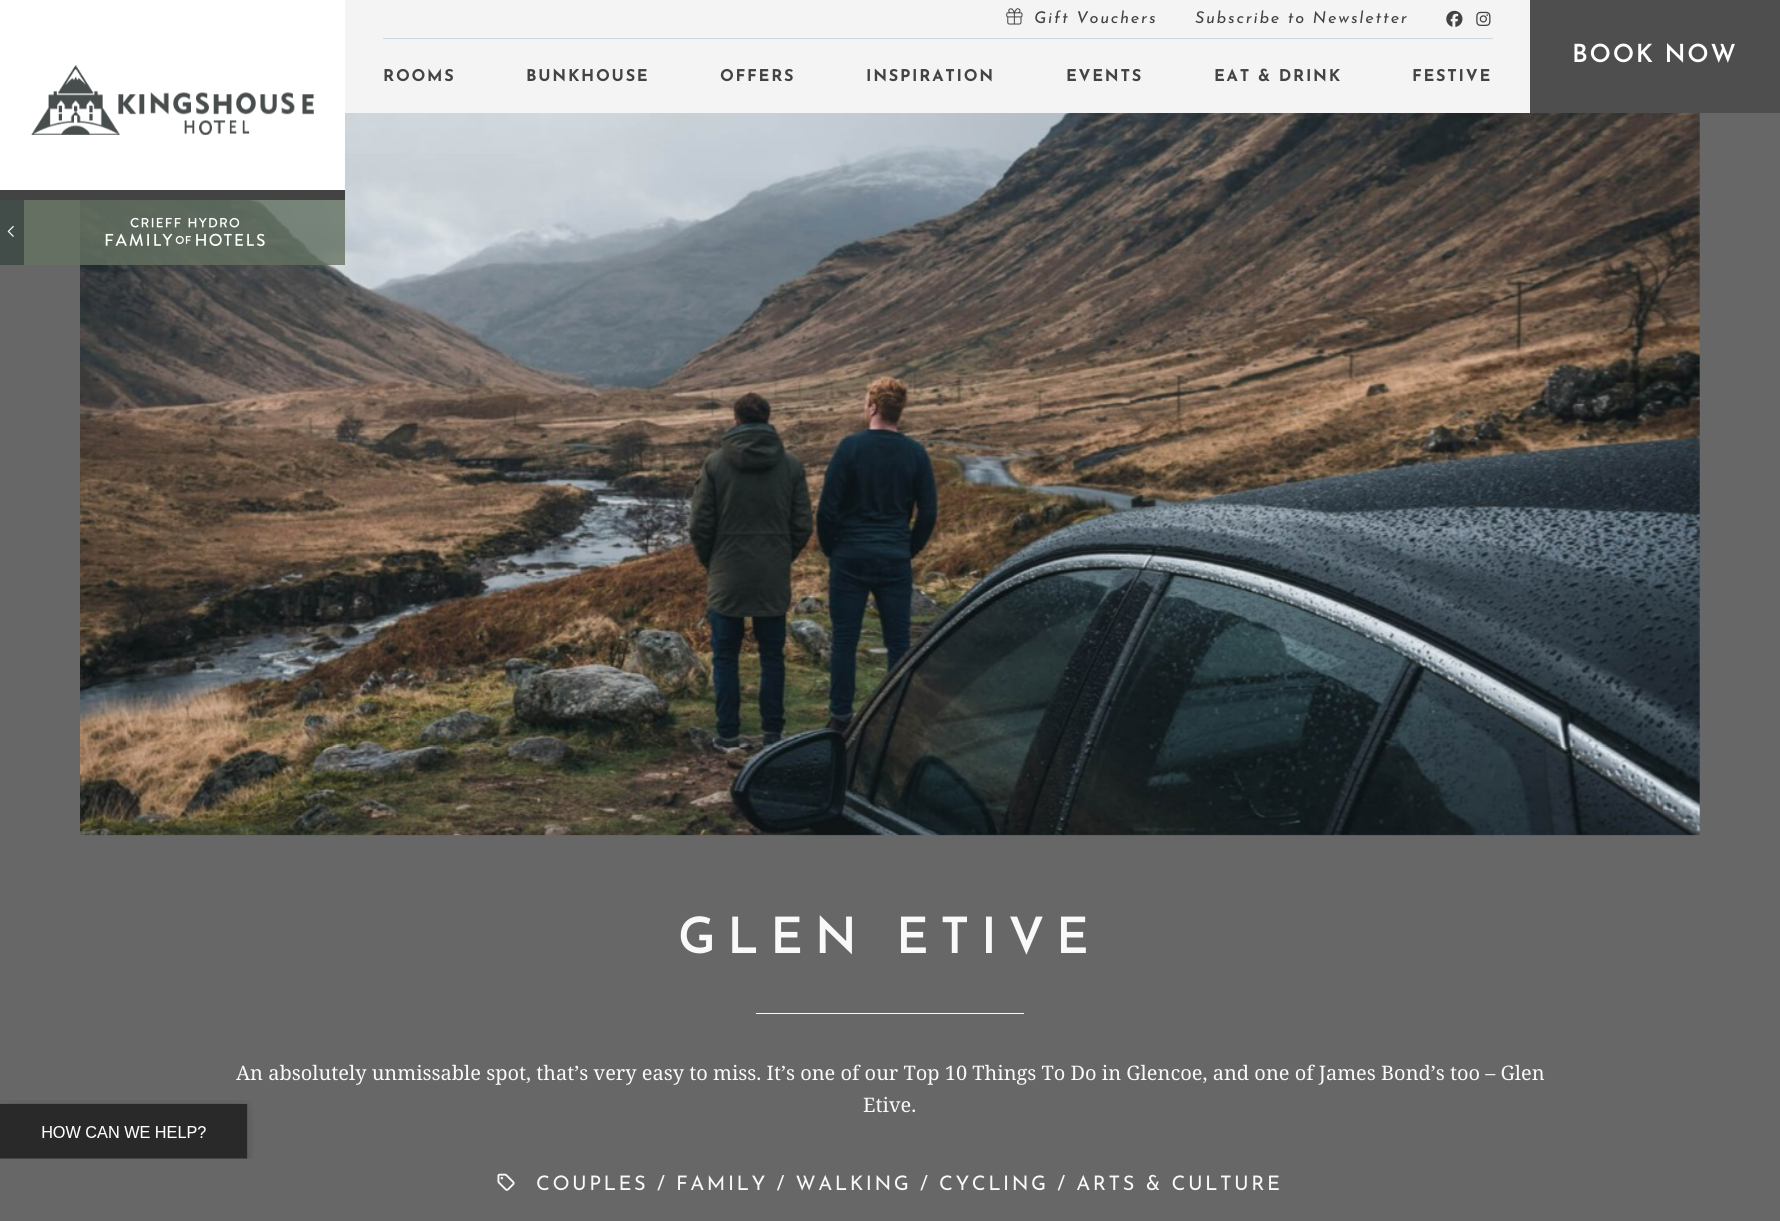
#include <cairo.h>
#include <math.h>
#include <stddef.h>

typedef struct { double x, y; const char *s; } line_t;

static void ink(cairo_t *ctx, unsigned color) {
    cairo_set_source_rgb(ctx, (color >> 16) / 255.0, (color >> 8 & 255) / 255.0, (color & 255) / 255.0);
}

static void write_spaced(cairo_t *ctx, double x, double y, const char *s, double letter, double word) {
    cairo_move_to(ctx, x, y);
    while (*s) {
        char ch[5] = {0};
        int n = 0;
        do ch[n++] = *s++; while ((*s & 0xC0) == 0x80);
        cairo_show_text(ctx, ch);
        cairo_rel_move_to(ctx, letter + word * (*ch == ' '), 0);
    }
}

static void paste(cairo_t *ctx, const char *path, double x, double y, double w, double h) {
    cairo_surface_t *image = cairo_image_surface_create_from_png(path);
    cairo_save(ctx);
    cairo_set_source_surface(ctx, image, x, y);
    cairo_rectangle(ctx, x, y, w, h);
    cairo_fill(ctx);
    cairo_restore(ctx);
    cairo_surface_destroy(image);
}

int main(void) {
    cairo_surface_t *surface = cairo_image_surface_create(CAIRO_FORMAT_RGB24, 1780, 1221);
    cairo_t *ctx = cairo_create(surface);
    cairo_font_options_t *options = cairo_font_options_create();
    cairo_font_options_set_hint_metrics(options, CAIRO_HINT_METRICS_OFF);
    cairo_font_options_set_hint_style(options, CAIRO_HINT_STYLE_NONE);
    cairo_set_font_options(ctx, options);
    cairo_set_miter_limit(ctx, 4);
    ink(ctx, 0x676767);
    cairo_paint(ctx);
    paste(ctx, "media/1.png", 0, 1100, 253, 59);
    ink(ctx, 0xF3F4F3);
    cairo_rectangle(ctx, 345, 0, 1185, 113);
    cairo_fill(ctx);
    paste(ctx, "media/8.png", 80, 113, 1620, 723);
    ink(ctx, 0xFFFFFF);
    cairo_rectangle(ctx, 0, 0, 345, 190);
    cairo_fill(ctx);
    paste(ctx, "media/2.png", 31, 65, 283, 70);
    ink(ctx, 0x434343);
    cairo_rectangle(ctx, 0, 190, 345, 10);
    cairo_fill(ctx);
    ink(ctx, 0x424D49);
    cairo_rectangle(ctx, 0, 200, 24, 65);
    cairo_fill(ctx);
    paste(ctx, "media/3.png", 7, 225, 7, 12);
    cairo_set_source_rgba(ctx, 0.392, 0.447, 0.384, 0.8);
    cairo_rectangle(ctx, 24, 200, 321, 65);
    cairo_fill(ctx);
    paste(ctx, "media/4.png", 105, 217, 160, 30);
    paste(ctx, "media/5.png", 1006, 8, 17, 17);
    cairo_select_font_face(ctx, "Josefin Sans", CAIRO_FONT_SLANT_ITALIC, CAIRO_FONT_WEIGHT_NORMAL);
    cairo_set_font_size(ctx, 16.25);
    ink(ctx, 0x434343);
    write_spaced(ctx, 1034, 23, "Gift Vouchers", 1.75, 0);
    write_spaced(ctx, 1195, 23, "Subscribe to Newsletter", 1.75, 0);
    paste(ctx, "media/6.png", 1446, 10, 17, 17);
    paste(ctx, "media/7.png", 1476, 11, 15, 15);
    ink(ctx, 0xCDD8DE);
    cairo_rectangle(ctx, 383, 38, 1110, 1);
    cairo_fill(ctx);
    cairo_select_font_face(ctx, "Josefin Sans", CAIRO_FONT_SLANT_NORMAL, CAIRO_FONT_WEIGHT_BOLD);
    ink(ctx, 0x434343);
    {
        static const line_t items[] = {
            {383, 81, "ROOMS"},
            {526, 81, "BUNKHOUSE"},
            {720, 81, "OFFERS"},
            {866, 81, "INSPIRATION"},
            {1066, 81, "EVENTS"},
            {1214, 81, "EAT & DRINK"},
            {1412, 81, "FESTIVE"},
        };
        for (size_t i = 0; i < sizeof items / sizeof *items; i++) {
            write_spaced(ctx, items[i].x, items[i].y, items[i].s, 1.75, 0);
        }
    }
    ink(ctx, 0x4E4E4E);
    cairo_rectangle(ctx, 1530, 0, 250, 113);
    cairo_fill(ctx);
    cairo_select_font_face(ctx, "Josefin Sans SemiBold", CAIRO_FONT_SLANT_NORMAL, CAIRO_FONT_WEIGHT_NORMAL);
    cairo_set_font_size(ctx, 25);
    ink(ctx, 0xFFFFFF);
    write_spaced(ctx, 1572, 62, "BOOK NOW", 1.75, 0);
    cairo_set_font_size(ctx, 50);
    ink(ctx, 0xF9F9F9);
    write_spaced(ctx, 678, 953, "GLEN ETIVE", 11.5, 0);
    cairo_rectangle(ctx, 756, 1013, 268, 1);
    cairo_fill(ctx);
    cairo_select_font_face(ctx, "Noto Serif", CAIRO_FONT_SLANT_NORMAL, CAIRO_FONT_WEIGHT_NORMAL);
    cairo_set_font_size(ctx, 20);
    cairo_move_to(ctx, 236, 1080);
    cairo_show_text(ctx, "An absolutely unmissable spot, that’s very easy to miss. It’s one of our Top 10 Things To Do in Glencoe, and one of James Bond’s too – Glen");
    cairo_move_to(ctx, 863, 1112);
    cairo_show_text(ctx, "Etive.");
    paste(ctx, "media/9.png", 497, 1173, 18, 18);
    cairo_select_font_face(ctx, "Josefin Sans", CAIRO_FONT_SLANT_NORMAL, CAIRO_FONT_WEIGHT_NORMAL);
    write_spaced(ctx, 536, 1190, "COUPLES / FAMILY / WALKING / CYCLING / ARTS & CULTURE", 2.5, 0);
    cairo_surface_write_to_png(surface, "image.png");
    cairo_font_options_destroy(options);
    cairo_destroy(ctx);
    cairo_surface_destroy(surface);
    return 0;
}
